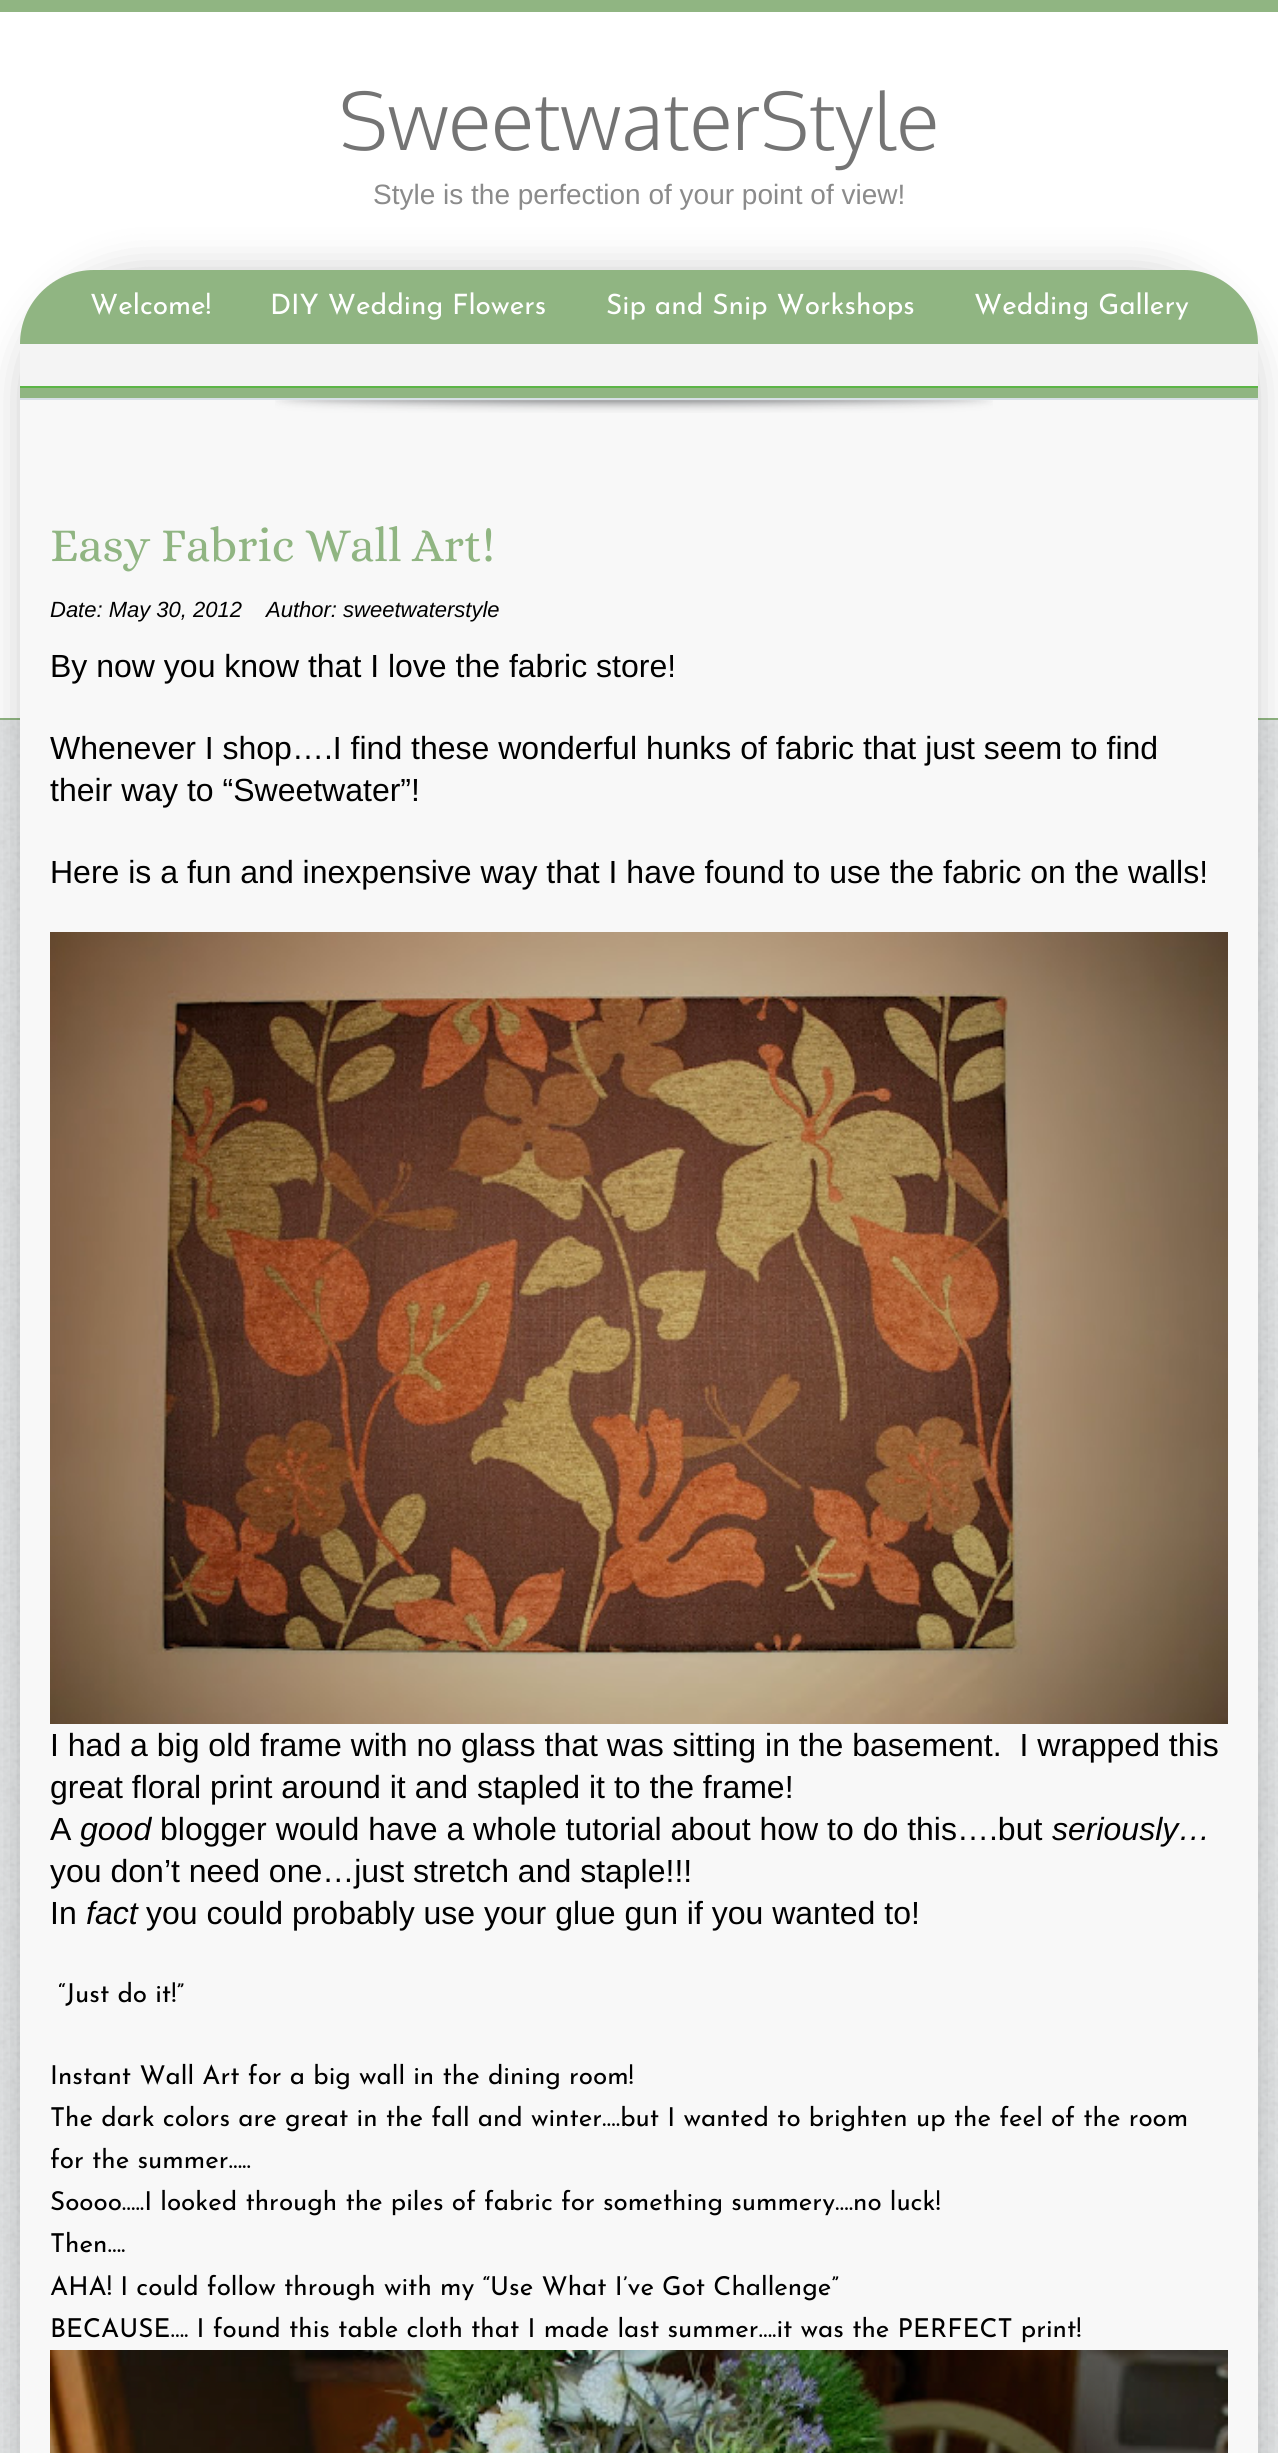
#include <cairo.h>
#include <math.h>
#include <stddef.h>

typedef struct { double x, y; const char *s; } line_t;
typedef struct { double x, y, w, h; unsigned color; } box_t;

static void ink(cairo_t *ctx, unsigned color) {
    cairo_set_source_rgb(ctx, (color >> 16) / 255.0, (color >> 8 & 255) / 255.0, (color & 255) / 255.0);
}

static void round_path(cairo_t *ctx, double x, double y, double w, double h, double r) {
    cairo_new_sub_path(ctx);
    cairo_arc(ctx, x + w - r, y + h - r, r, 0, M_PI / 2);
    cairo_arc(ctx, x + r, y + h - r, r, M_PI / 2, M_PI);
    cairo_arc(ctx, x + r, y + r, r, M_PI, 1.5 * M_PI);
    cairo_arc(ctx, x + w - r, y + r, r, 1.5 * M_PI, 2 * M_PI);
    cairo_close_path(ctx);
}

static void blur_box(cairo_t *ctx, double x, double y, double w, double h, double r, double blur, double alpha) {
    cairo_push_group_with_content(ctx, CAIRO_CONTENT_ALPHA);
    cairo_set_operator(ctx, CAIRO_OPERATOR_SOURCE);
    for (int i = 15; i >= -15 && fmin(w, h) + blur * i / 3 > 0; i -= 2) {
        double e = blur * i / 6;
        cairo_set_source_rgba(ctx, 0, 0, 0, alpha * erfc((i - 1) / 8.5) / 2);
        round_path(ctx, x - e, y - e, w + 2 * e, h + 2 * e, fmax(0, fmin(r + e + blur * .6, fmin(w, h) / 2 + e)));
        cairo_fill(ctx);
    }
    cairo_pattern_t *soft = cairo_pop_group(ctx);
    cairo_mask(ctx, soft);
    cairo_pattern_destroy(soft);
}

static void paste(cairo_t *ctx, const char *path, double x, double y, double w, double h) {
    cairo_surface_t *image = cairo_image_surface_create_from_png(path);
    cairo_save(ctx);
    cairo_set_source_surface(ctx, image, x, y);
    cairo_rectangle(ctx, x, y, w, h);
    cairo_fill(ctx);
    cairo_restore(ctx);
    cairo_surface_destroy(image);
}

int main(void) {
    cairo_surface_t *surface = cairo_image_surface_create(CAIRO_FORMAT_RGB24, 1278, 2453);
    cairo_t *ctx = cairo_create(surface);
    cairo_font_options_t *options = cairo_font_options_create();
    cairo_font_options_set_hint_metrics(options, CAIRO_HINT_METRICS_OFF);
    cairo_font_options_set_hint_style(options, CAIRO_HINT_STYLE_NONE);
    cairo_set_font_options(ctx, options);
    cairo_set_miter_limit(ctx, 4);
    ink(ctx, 0xDADDDF);
    cairo_paint(ctx);
    paste(ctx, "media/1.png", 0, 720, 1278, 1733);
    {
        static const box_t items[] = {
            {0, 12, 1278, 706, 0xFFFFFF},
            {0, 0, 1278, 12, 0x90B582},
            {0, 718, 1278, 2, 0x90B582},
        };
        for (size_t i = 0; i < sizeof items / sizeof *items; i++) {
            ink(ctx, items[i].color);
            cairo_rectangle(ctx, items[i].x, items[i].y, items[i].w, items[i].h);
            cairo_fill(ctx);
        }
    }
    cairo_select_font_face(ctx, "Oxygen Light", CAIRO_FONT_SLANT_NORMAL, CAIRO_FONT_WEIGHT_NORMAL);
    cairo_set_font_size(ctx, 80);
    ink(ctx, 0x747474);
    cairo_move_to(ctx, 339, 150);
    cairo_show_text(ctx, "SweetwaterStyle");
    ink(ctx, 0x000000);
    blur_box(ctx, 20, 270, 1238, 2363, 120, 20, 0.2);
    cairo_select_font_face(ctx, "Liberation Sans", CAIRO_FONT_SLANT_NORMAL, CAIRO_FONT_WEIGHT_NORMAL);
    cairo_set_font_size(ctx, 28);
    ink(ctx, 0x8B8B8B);
    cairo_move_to(ctx, 373, 204);
    cairo_show_text(ctx, "Style is the perfection of your point of view!");
    ink(ctx, 0xF8F8F8);
    cairo_new_path(ctx);
    cairo_move_to(ctx, 140, 270);
    cairo_line_to(ctx, 1138, 270);
    cairo_curve_to(ctx, 1204.5, 270, 1258, 323.5, 1258, 390);
    cairo_line_to(ctx, 1258, 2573);
    cairo_line_to(ctx, 20, 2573);
    cairo_line_to(ctx, 20, 390);
    cairo_curve_to(ctx, 20, 323.5, 73.5, 270, 140, 270);
    cairo_close_path(ctx);
    cairo_fill(ctx);
    ink(ctx, 0x90B582);
    cairo_new_path(ctx);
    cairo_move_to(ctx, 94, 270);
    cairo_line_to(ctx, 1184, 270);
    cairo_curve_to(ctx, 1225, 270, 1258, 303, 1258, 344);
    cairo_line_to(ctx, 20, 344);
    cairo_curve_to(ctx, 20, 303, 53, 270, 94, 270);
    cairo_close_path(ctx);
    cairo_fill(ctx);
    cairo_select_font_face(ctx, "Josefin Sans Thin", CAIRO_FONT_SLANT_NORMAL, CAIRO_FONT_WEIGHT_NORMAL);
    ink(ctx, 0xFFFFFF);
    {
        static const line_t items[] = {
            {90, 314, "Welcome!"},
            {270, 314, "DIY Wedding Flowers"},
            {606, 314, "Sip and Snip Workshops"},
            {974, 314, "Wedding Gallery"},
        };
        for (size_t i = 0; i < sizeof items / sizeof *items; i++) {
            cairo_move_to(ctx, items[i].x, items[i].y);
            cairo_show_text(ctx, items[i].s);
        }
    }
    {
        static const box_t items[] = {
            {20, 344, 1238, 42, 0xF4F4F4},
            {20, 386, 1238, 2, 0x5CB546},
            {20, 388, 1238, 10, 0x90B582},
            {20, 398, 1238, 2, 0xD7DFE6},
        };
        for (size_t i = 0; i < sizeof items / sizeof *items; i++) {
            ink(ctx, items[i].color);
            cairo_rectangle(ctx, items[i].x, items[i].y, items[i].w, items[i].h);
            cairo_fill(ctx);
        }
    }
    paste(ctx, "media/2.png", 275, 400, 718, 13);
    cairo_select_font_face(ctx, "Alice", CAIRO_FONT_SLANT_NORMAL, CAIRO_FONT_WEIGHT_NORMAL);
    cairo_set_font_size(ctx, 48);
    ink(ctx, 0x90B582);
    cairo_move_to(ctx, 50, 561);
    cairo_show_text(ctx, "Easy Fabric Wall Art!");
    cairo_select_font_face(ctx, "Liberation Sans", CAIRO_FONT_SLANT_ITALIC, CAIRO_FONT_WEIGHT_NORMAL);
    cairo_set_font_size(ctx, 22);
    ink(ctx, 0x000000);
    cairo_move_to(ctx, 50, 617);
    cairo_show_text(ctx, "Date: May 30, 2012");
    cairo_move_to(ctx, 266, 617);
    cairo_show_text(ctx, "Author: sweetwaterstyle");
    cairo_select_font_face(ctx, "Liberation Sans", CAIRO_FONT_SLANT_NORMAL, CAIRO_FONT_WEIGHT_NORMAL);
    cairo_set_font_size(ctx, 32);
    {
        static const line_t items[] = {
            {50, 677, "By now you know that I love the fabric store!"},
            {50, 759, "Whenever I shop….I find these wonderful hunks of fabric that just seem to find"},
            {50, 801, "their way to “Sweetwater”!"},
            {50, 883, "Here is a fun and inexpensive way that I have found to use the fabric on the walls!"},
        };
        for (size_t i = 0; i < sizeof items / sizeof *items; i++) {
            cairo_move_to(ctx, items[i].x, items[i].y);
            cairo_show_text(ctx, items[i].s);
        }
    }
    paste(ctx, "media/3.png", 50, 932, 1178, 792);
    {
        static const line_t items[] = {
            {50, 1756, "I had a big old frame with no glass that was sitting in the basement.  I wrapped this"},
            {50, 1798, "great floral print around it and stapled it to the frame!"},
            {50, 1840, "A"},
        };
        for (size_t i = 0; i < sizeof items / sizeof *items; i++) {
            cairo_move_to(ctx, items[i].x, items[i].y);
            cairo_show_text(ctx, items[i].s);
        }
    }
    cairo_select_font_face(ctx, "Liberation Sans", CAIRO_FONT_SLANT_ITALIC, CAIRO_FONT_WEIGHT_NORMAL);
    cairo_move_to(ctx, 80, 1840);
    cairo_show_text(ctx, "good");
    cairo_select_font_face(ctx, "Liberation Sans", CAIRO_FONT_SLANT_NORMAL, CAIRO_FONT_WEIGHT_NORMAL);
    cairo_move_to(ctx, 160, 1840);
    cairo_show_text(ctx, "blogger would have a whole tutorial about how to do this….but");
    cairo_select_font_face(ctx, "Liberation Sans", CAIRO_FONT_SLANT_ITALIC, CAIRO_FONT_WEIGHT_NORMAL);
    cairo_move_to(ctx, 1052, 1840);
    cairo_show_text(ctx, "seriously…");
    cairo_select_font_face(ctx, "Liberation Sans", CAIRO_FONT_SLANT_NORMAL, CAIRO_FONT_WEIGHT_NORMAL);
    cairo_move_to(ctx, 50, 1882);
    cairo_show_text(ctx, "you don’t need one…just stretch and staple!!!");
    cairo_move_to(ctx, 50, 1924);
    cairo_show_text(ctx, "In");
    cairo_select_font_face(ctx, "Liberation Sans", CAIRO_FONT_SLANT_ITALIC, CAIRO_FONT_WEIGHT_NORMAL);
    cairo_move_to(ctx, 86, 1924);
    cairo_show_text(ctx, "fact");
    cairo_select_font_face(ctx, "Liberation Sans", CAIRO_FONT_SLANT_NORMAL, CAIRO_FONT_WEIGHT_NORMAL);
    cairo_move_to(ctx, 146, 1924);
    cairo_show_text(ctx, "you could probably use your glue gun if you wanted to!");
    cairo_select_font_face(ctx, "Josefin Sans Thin", CAIRO_FONT_SLANT_NORMAL, CAIRO_FONT_WEIGHT_NORMAL);
    cairo_set_font_size(ctx, 26);
    {
        static const line_t items[] = {
            {58, 2002, "“Just do it!”"},
            {50, 2084, "Instant Wall Art for a big wall in the dining room!"},
            {50, 2126, "The dark colors are great in the fall and winter….but I wanted to brighten up the feel of the room"},
            {50, 2168, "for the summer….."},
            {50, 2210, "Soooo…..I looked through the piles of fabric for something summery….no luck!"},
            {50, 2252, "Then…."},
            {50, 2295, "AHA! I could follow through with my “Use What I’ve Got Challenge”"},
            {50, 2337, "BECAUSE…. I found this table cloth that I made last summer….it was the PERFECT print!"},
        };
        for (size_t i = 0; i < sizeof items / sizeof *items; i++) {
            cairo_move_to(ctx, items[i].x, items[i].y);
            cairo_show_text(ctx, items[i].s);
        }
    }
    paste(ctx, "media/4.png", 50, 2350, 1178, 103);
    cairo_surface_write_to_png(surface, "image.png");
    cairo_font_options_destroy(options);
    cairo_destroy(ctx);
    cairo_surface_destroy(surface);
    return 0;
}
